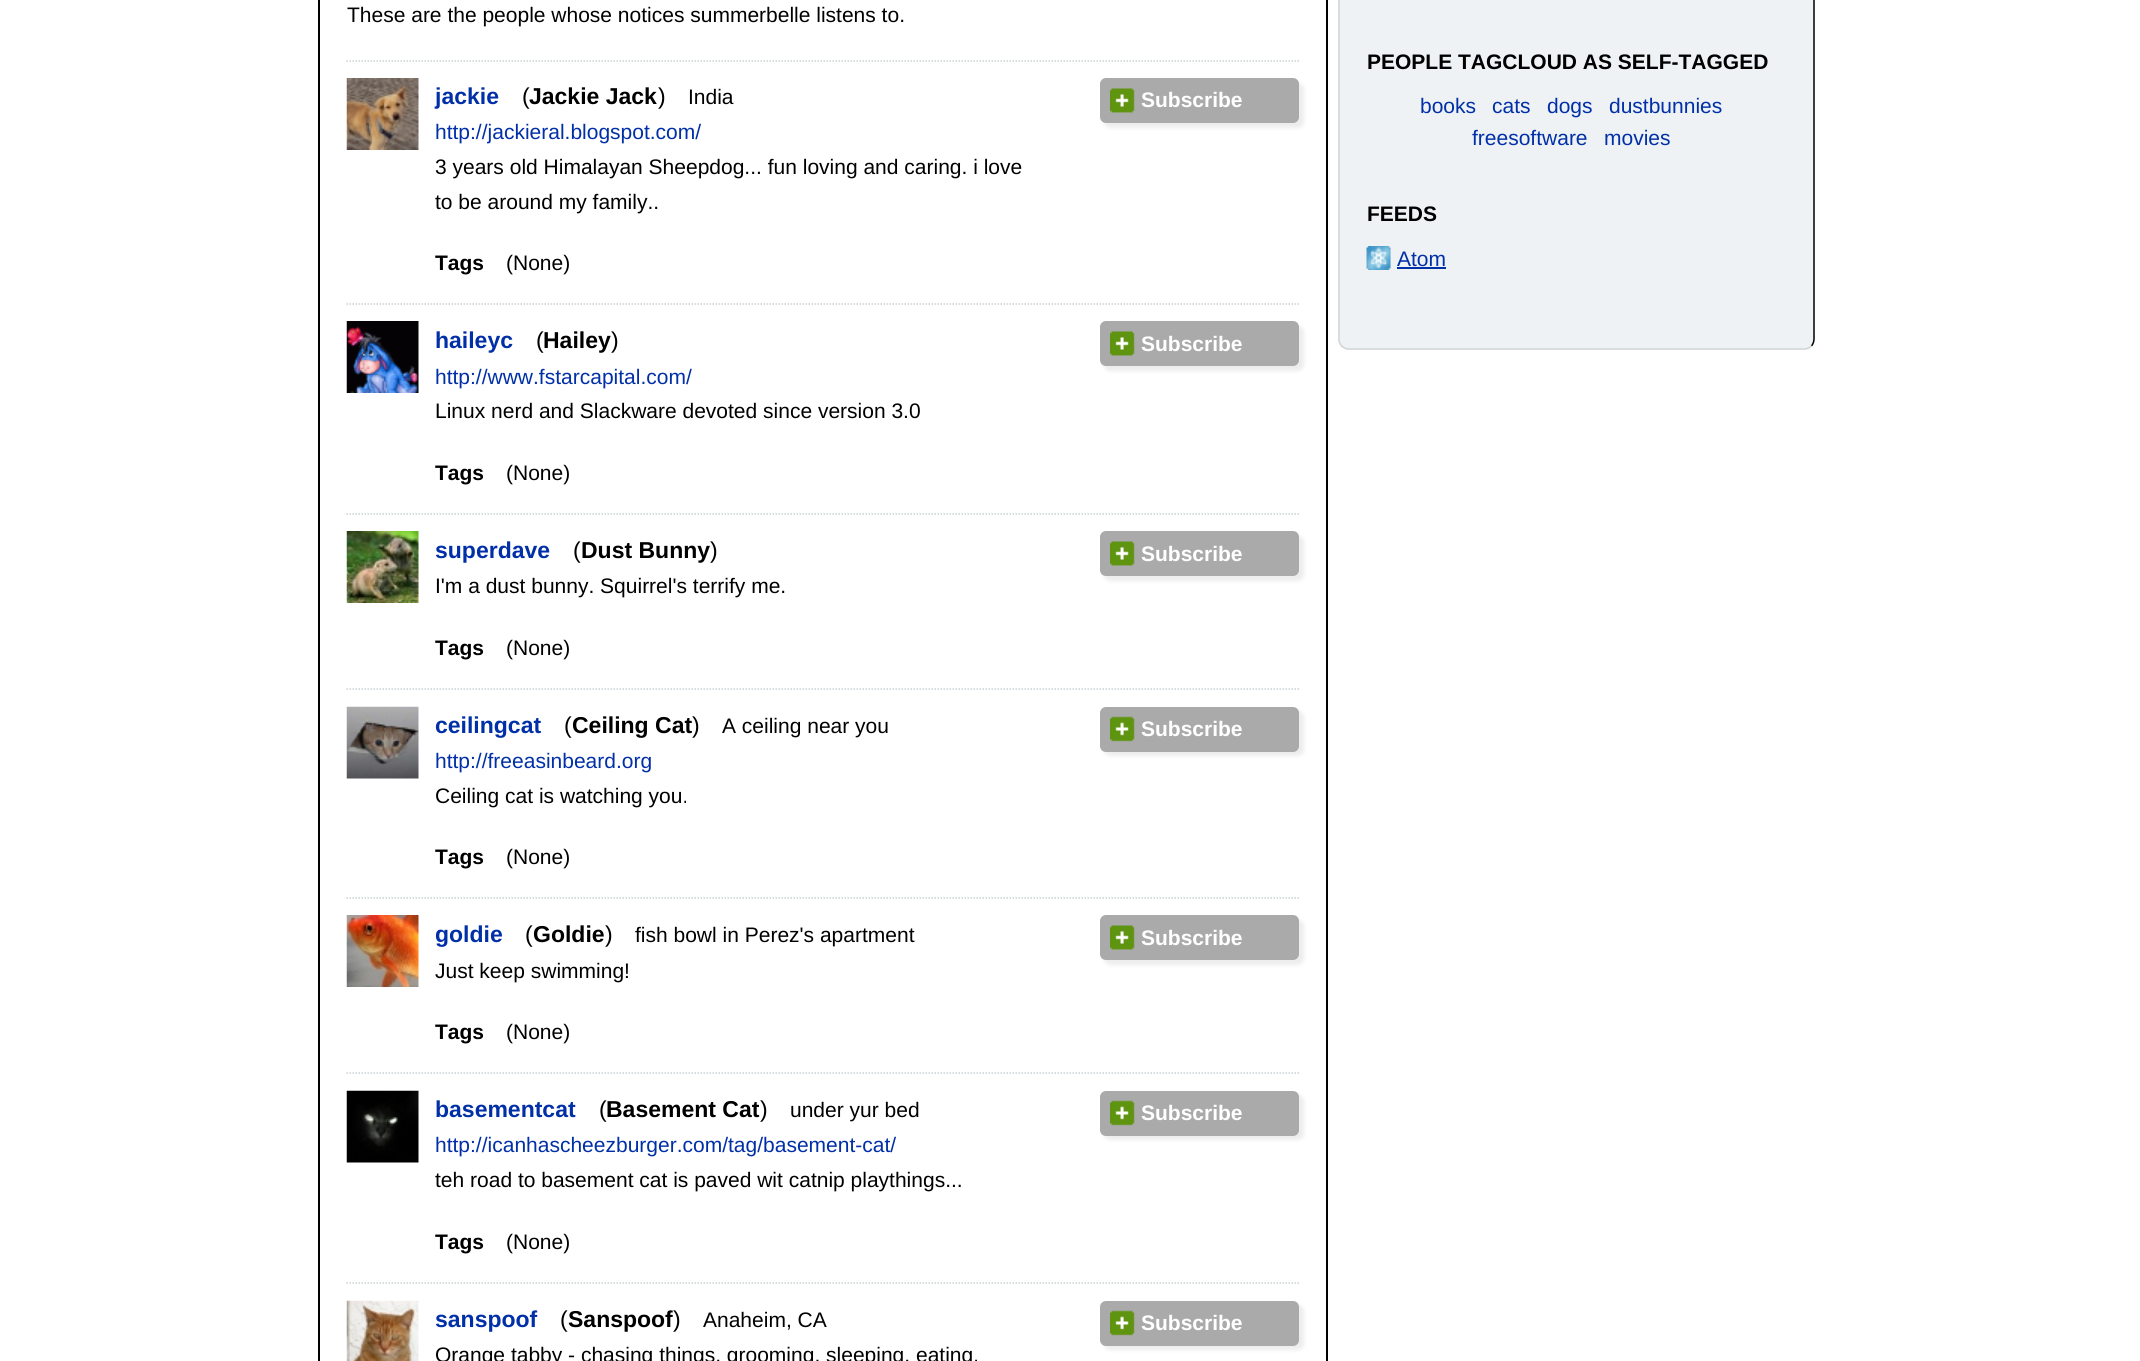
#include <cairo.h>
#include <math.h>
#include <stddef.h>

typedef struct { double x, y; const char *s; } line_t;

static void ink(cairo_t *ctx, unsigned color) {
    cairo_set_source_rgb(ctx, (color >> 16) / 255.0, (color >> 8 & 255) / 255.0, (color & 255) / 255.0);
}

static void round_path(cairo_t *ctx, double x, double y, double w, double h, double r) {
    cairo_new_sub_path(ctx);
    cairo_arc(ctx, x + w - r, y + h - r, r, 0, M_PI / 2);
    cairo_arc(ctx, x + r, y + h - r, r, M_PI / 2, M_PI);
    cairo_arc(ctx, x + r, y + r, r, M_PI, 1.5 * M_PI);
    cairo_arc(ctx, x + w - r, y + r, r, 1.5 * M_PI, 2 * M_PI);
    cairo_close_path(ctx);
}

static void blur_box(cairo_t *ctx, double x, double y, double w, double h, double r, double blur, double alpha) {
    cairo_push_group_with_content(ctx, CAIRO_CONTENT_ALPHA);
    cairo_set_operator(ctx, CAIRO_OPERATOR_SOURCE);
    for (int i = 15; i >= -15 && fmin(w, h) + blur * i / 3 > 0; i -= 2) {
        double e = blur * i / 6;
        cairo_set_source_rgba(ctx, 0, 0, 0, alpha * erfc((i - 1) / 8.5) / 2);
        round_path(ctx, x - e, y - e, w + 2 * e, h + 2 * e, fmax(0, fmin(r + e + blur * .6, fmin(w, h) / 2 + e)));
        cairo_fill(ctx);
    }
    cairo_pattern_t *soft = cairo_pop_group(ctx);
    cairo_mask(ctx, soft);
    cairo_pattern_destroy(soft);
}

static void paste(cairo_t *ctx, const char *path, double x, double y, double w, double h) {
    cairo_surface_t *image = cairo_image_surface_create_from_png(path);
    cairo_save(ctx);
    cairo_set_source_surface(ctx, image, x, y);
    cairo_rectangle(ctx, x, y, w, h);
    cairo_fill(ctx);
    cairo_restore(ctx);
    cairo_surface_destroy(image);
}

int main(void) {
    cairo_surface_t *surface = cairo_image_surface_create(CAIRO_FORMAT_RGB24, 2140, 1361);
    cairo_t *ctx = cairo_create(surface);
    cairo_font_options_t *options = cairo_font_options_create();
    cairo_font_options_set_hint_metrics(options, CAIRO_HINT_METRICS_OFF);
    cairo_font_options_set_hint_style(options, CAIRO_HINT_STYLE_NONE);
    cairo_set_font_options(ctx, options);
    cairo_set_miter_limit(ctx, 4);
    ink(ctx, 0xFFFFFF);
    cairo_paint(ctx);
    cairo_rectangle(ctx, 319, -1, 1008, 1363);
    ink(ctx, 0x000000);
    cairo_stroke(ctx);
    cairo_select_font_face(ctx, "Liberation Sans", CAIRO_FONT_SLANT_NORMAL, CAIRO_FONT_WEIGHT_NORMAL);
    cairo_set_font_size(ctx, 21);
    cairo_move_to(ctx, 347, 22);
    cairo_show_text(ctx, "These are the people whose notices summerbelle listens to.");
    cairo_new_path(ctx);
    cairo_move_to(ctx, 346.5, 61);
    cairo_line_to(ctx, 1299, 61);
    ink(ctx, 0xC8D1D5);
    cairo_set_line_width(ctx, 1.5);
    cairo_set_dash(ctx, (double[]){1.5, 1.5}, 2, 0);
    cairo_stroke(ctx);
    paste(ctx, "media/1.png", 346, 78, 73, 72);
    cairo_select_font_face(ctx, "Liberation Sans", CAIRO_FONT_SLANT_NORMAL, CAIRO_FONT_WEIGHT_BOLD);
    cairo_set_font_size(ctx, 23);
    ink(ctx, 0x002FA7);
    cairo_move_to(ctx, 435, 104);
    cairo_show_text(ctx, "jackie");
    cairo_select_font_face(ctx, "Liberation Sans", CAIRO_FONT_SLANT_NORMAL, CAIRO_FONT_WEIGHT_NORMAL);
    ink(ctx, 0x000000);
    cairo_move_to(ctx, 522, 104);
    cairo_show_text(ctx, "(");
    cairo_select_font_face(ctx, "Liberation Sans", CAIRO_FONT_SLANT_NORMAL, CAIRO_FONT_WEIGHT_BOLD);
    cairo_move_to(ctx, 529, 104);
    cairo_show_text(ctx, "Jackie Jack");
    cairo_select_font_face(ctx, "Liberation Sans", CAIRO_FONT_SLANT_NORMAL, CAIRO_FONT_WEIGHT_NORMAL);
    cairo_move_to(ctx, 658, 104);
    cairo_show_text(ctx, ")");
    cairo_set_font_size(ctx, 21);
    cairo_move_to(ctx, 688, 104);
    cairo_show_text(ctx, "India");
    ink(ctx, 0x002FA7);
    cairo_move_to(ctx, 435, 139);
    cairo_show_text(ctx, "http://jackieral.blogspot.com/");
    ink(ctx, 0x000000);
    cairo_move_to(ctx, 435, 174);
    cairo_show_text(ctx, "3 years old Himalayan Sheepdog... fun loving and caring. i love");
    cairo_move_to(ctx, 435, 209);
    cairo_show_text(ctx, "to be around my family..");
    cairo_select_font_face(ctx, "Liberation Sans", CAIRO_FONT_SLANT_NORMAL, CAIRO_FONT_WEIGHT_BOLD);
    cairo_move_to(ctx, 435, 270);
    cairo_show_text(ctx, "Tags");
    cairo_select_font_face(ctx, "Liberation Sans", CAIRO_FONT_SLANT_NORMAL, CAIRO_FONT_WEIGHT_NORMAL);
    cairo_move_to(ctx, 506, 270);
    cairo_show_text(ctx, "(None)");
    ink(ctx, 0xC2C2C2);
    blur_box(ctx, 1104, 83, 200, 45, 6, 2, 0.3);
    ink(ctx, 0xAAAAAA);
    round_path(ctx, 1100, 78, 199, 45, 6);
    cairo_fill(ctx);
    paste(ctx, "media/2.png", 1110, 88, 25, 25);
    cairo_select_font_face(ctx, "Liberation Sans", CAIRO_FONT_SLANT_NORMAL, CAIRO_FONT_WEIGHT_BOLD);
    ink(ctx, 0xFFFFFF);
    cairo_move_to(ctx, 1141, 107);
    cairo_show_text(ctx, "Subscribe");
    cairo_new_path(ctx);
    cairo_move_to(ctx, 346.5, 304);
    cairo_line_to(ctx, 1299, 304);
    ink(ctx, 0xC8D1D5);
    cairo_stroke(ctx);
    paste(ctx, "media/3.png", 346, 321, 73, 72);
    cairo_set_font_size(ctx, 23);
    ink(ctx, 0x002FA7);
    cairo_move_to(ctx, 435, 348);
    cairo_show_text(ctx, "haileyc");
    cairo_select_font_face(ctx, "Liberation Sans", CAIRO_FONT_SLANT_NORMAL, CAIRO_FONT_WEIGHT_NORMAL);
    ink(ctx, 0x000000);
    cairo_move_to(ctx, 536, 348);
    cairo_show_text(ctx, "(");
    cairo_select_font_face(ctx, "Liberation Sans", CAIRO_FONT_SLANT_NORMAL, CAIRO_FONT_WEIGHT_BOLD);
    cairo_move_to(ctx, 543, 348);
    cairo_show_text(ctx, "Hailey");
    cairo_select_font_face(ctx, "Liberation Sans", CAIRO_FONT_SLANT_NORMAL, CAIRO_FONT_WEIGHT_NORMAL);
    cairo_move_to(ctx, 611, 348);
    cairo_show_text(ctx, ")");
    cairo_set_font_size(ctx, 21);
    ink(ctx, 0x002FA7);
    cairo_move_to(ctx, 435, 384);
    cairo_show_text(ctx, "http://www.fstarcapital.com/");
    ink(ctx, 0x000000);
    cairo_move_to(ctx, 435, 418);
    cairo_show_text(ctx, "Linux nerd and Slackware devoted since version 3.0");
    cairo_select_font_face(ctx, "Liberation Sans", CAIRO_FONT_SLANT_NORMAL, CAIRO_FONT_WEIGHT_BOLD);
    cairo_move_to(ctx, 435, 480);
    cairo_show_text(ctx, "Tags");
    cairo_select_font_face(ctx, "Liberation Sans", CAIRO_FONT_SLANT_NORMAL, CAIRO_FONT_WEIGHT_NORMAL);
    cairo_move_to(ctx, 506, 480);
    cairo_show_text(ctx, "(None)");
    ink(ctx, 0xC2C2C2);
    blur_box(ctx, 1104, 326, 200, 45, 6, 2, 0.3);
    ink(ctx, 0xAAAAAA);
    round_path(ctx, 1100, 321, 199, 45, 6);
    cairo_fill(ctx);
    paste(ctx, "media/2.png", 1110, 331, 25, 25);
    cairo_select_font_face(ctx, "Liberation Sans", CAIRO_FONT_SLANT_NORMAL, CAIRO_FONT_WEIGHT_BOLD);
    ink(ctx, 0xFFFFFF);
    cairo_move_to(ctx, 1141, 351);
    cairo_show_text(ctx, "Subscribe");
    cairo_new_path(ctx);
    cairo_move_to(ctx, 346.5, 514);
    cairo_line_to(ctx, 1299, 514);
    ink(ctx, 0xC8D1D5);
    cairo_stroke(ctx);
    paste(ctx, "media/4.png", 346, 531, 73, 72);
    cairo_set_font_size(ctx, 23);
    ink(ctx, 0x002FA7);
    cairo_move_to(ctx, 435, 558);
    cairo_show_text(ctx, "superdave");
    cairo_select_font_face(ctx, "Liberation Sans", CAIRO_FONT_SLANT_NORMAL, CAIRO_FONT_WEIGHT_NORMAL);
    ink(ctx, 0x000000);
    cairo_move_to(ctx, 573, 558);
    cairo_show_text(ctx, "(");
    cairo_select_font_face(ctx, "Liberation Sans", CAIRO_FONT_SLANT_NORMAL, CAIRO_FONT_WEIGHT_BOLD);
    cairo_move_to(ctx, 581, 558);
    cairo_show_text(ctx, "Dust Bunny");
    cairo_select_font_face(ctx, "Liberation Sans", CAIRO_FONT_SLANT_NORMAL, CAIRO_FONT_WEIGHT_NORMAL);
    cairo_move_to(ctx, 710, 558);
    cairo_show_text(ctx, ")");
    cairo_set_font_size(ctx, 21);
    cairo_move_to(ctx, 435, 593);
    cairo_show_text(ctx, "I'm a dust bunny. Squirrel's terrify me.");
    cairo_select_font_face(ctx, "Liberation Sans", CAIRO_FONT_SLANT_NORMAL, CAIRO_FONT_WEIGHT_BOLD);
    cairo_move_to(ctx, 435, 655);
    cairo_show_text(ctx, "Tags");
    cairo_select_font_face(ctx, "Liberation Sans", CAIRO_FONT_SLANT_NORMAL, CAIRO_FONT_WEIGHT_NORMAL);
    cairo_move_to(ctx, 506, 655);
    cairo_show_text(ctx, "(None)");
    ink(ctx, 0xC2C2C2);
    blur_box(ctx, 1104, 536, 200, 45, 6, 2, 0.3);
    ink(ctx, 0xAAAAAA);
    round_path(ctx, 1100, 531, 199, 45, 6);
    cairo_fill(ctx);
    paste(ctx, "media/2.png", 1110, 541, 25, 25);
    cairo_select_font_face(ctx, "Liberation Sans", CAIRO_FONT_SLANT_NORMAL, CAIRO_FONT_WEIGHT_BOLD);
    ink(ctx, 0xFFFFFF);
    cairo_move_to(ctx, 1141, 561);
    cairo_show_text(ctx, "Subscribe");
    cairo_new_path(ctx);
    cairo_move_to(ctx, 346.5, 689);
    cairo_line_to(ctx, 1299, 689);
    ink(ctx, 0xC8D1D5);
    cairo_stroke(ctx);
    paste(ctx, "media/5.png", 346, 706, 73, 73);
    cairo_set_font_size(ctx, 23);
    ink(ctx, 0x002FA7);
    cairo_move_to(ctx, 435, 733);
    cairo_show_text(ctx, "ceilingcat");
    cairo_select_font_face(ctx, "Liberation Sans", CAIRO_FONT_SLANT_NORMAL, CAIRO_FONT_WEIGHT_NORMAL);
    ink(ctx, 0x000000);
    cairo_move_to(ctx, 564, 733);
    cairo_show_text(ctx, "(");
    cairo_select_font_face(ctx, "Liberation Sans", CAIRO_FONT_SLANT_NORMAL, CAIRO_FONT_WEIGHT_BOLD);
    cairo_move_to(ctx, 572, 733);
    cairo_show_text(ctx, "Ceiling Cat");
    cairo_select_font_face(ctx, "Liberation Sans", CAIRO_FONT_SLANT_NORMAL, CAIRO_FONT_WEIGHT_NORMAL);
    cairo_move_to(ctx, 692, 733);
    cairo_show_text(ctx, ")");
    cairo_set_font_size(ctx, 21);
    cairo_move_to(ctx, 722, 733);
    cairo_show_text(ctx, "A ceiling near you");
    ink(ctx, 0x002FA7);
    cairo_move_to(ctx, 435, 768);
    cairo_show_text(ctx, "http://freeasinbeard.org");
    ink(ctx, 0x000000);
    cairo_move_to(ctx, 435, 803);
    cairo_show_text(ctx, "Ceiling cat is watching you.");
    cairo_select_font_face(ctx, "Liberation Sans", CAIRO_FONT_SLANT_NORMAL, CAIRO_FONT_WEIGHT_BOLD);
    cairo_move_to(ctx, 435, 864);
    cairo_show_text(ctx, "Tags");
    cairo_select_font_face(ctx, "Liberation Sans", CAIRO_FONT_SLANT_NORMAL, CAIRO_FONT_WEIGHT_NORMAL);
    cairo_move_to(ctx, 506, 864);
    cairo_show_text(ctx, "(None)");
    ink(ctx, 0xC2C2C2);
    blur_box(ctx, 1104, 711, 200, 45, 6, 2, 0.3);
    ink(ctx, 0xAAAAAA);
    round_path(ctx, 1100, 707, 199, 45, 6);
    cairo_fill(ctx);
    paste(ctx, "media/6.png", 1110, 716, 25, 26);
    cairo_select_font_face(ctx, "Liberation Sans", CAIRO_FONT_SLANT_NORMAL, CAIRO_FONT_WEIGHT_BOLD);
    ink(ctx, 0xFFFFFF);
    cairo_move_to(ctx, 1141, 736);
    cairo_show_text(ctx, "Subscribe");
    cairo_new_path(ctx);
    cairo_move_to(ctx, 346.5, 898);
    cairo_line_to(ctx, 1299, 898);
    ink(ctx, 0xC8D1D5);
    cairo_stroke(ctx);
    paste(ctx, "media/7.png", 346, 915, 73, 72);
    cairo_set_font_size(ctx, 23);
    ink(ctx, 0x002FA7);
    cairo_move_to(ctx, 435, 942);
    cairo_show_text(ctx, "goldie");
    cairo_select_font_face(ctx, "Liberation Sans", CAIRO_FONT_SLANT_NORMAL, CAIRO_FONT_WEIGHT_NORMAL);
    ink(ctx, 0x000000);
    cairo_move_to(ctx, 525, 942);
    cairo_show_text(ctx, "(");
    cairo_select_font_face(ctx, "Liberation Sans", CAIRO_FONT_SLANT_NORMAL, CAIRO_FONT_WEIGHT_BOLD);
    cairo_move_to(ctx, 533, 942);
    cairo_show_text(ctx, "Goldie");
    cairo_select_font_face(ctx, "Liberation Sans", CAIRO_FONT_SLANT_NORMAL, CAIRO_FONT_WEIGHT_NORMAL);
    cairo_move_to(ctx, 605, 942);
    cairo_show_text(ctx, ")");
    cairo_set_font_size(ctx, 21);
    cairo_move_to(ctx, 635, 942);
    cairo_show_text(ctx, "fish bowl in Perez's apartment");
    cairo_move_to(ctx, 435, 978);
    cairo_show_text(ctx, "Just keep swimming!");
    cairo_select_font_face(ctx, "Liberation Sans", CAIRO_FONT_SLANT_NORMAL, CAIRO_FONT_WEIGHT_BOLD);
    cairo_move_to(ctx, 435, 1039);
    cairo_show_text(ctx, "Tags");
    cairo_select_font_face(ctx, "Liberation Sans", CAIRO_FONT_SLANT_NORMAL, CAIRO_FONT_WEIGHT_NORMAL);
    cairo_move_to(ctx, 506, 1039);
    cairo_show_text(ctx, "(None)");
    ink(ctx, 0xC2C2C2);
    blur_box(ctx, 1104, 920, 200, 45, 6, 2, 0.3);
    ink(ctx, 0xAAAAAA);
    round_path(ctx, 1100, 915, 199, 45, 6);
    cairo_fill(ctx);
    paste(ctx, "media/2.png", 1110, 925, 25, 25);
    cairo_select_font_face(ctx, "Liberation Sans", CAIRO_FONT_SLANT_NORMAL, CAIRO_FONT_WEIGHT_BOLD);
    ink(ctx, 0xFFFFFF);
    cairo_move_to(ctx, 1141, 945);
    cairo_show_text(ctx, "Subscribe");
    cairo_new_path(ctx);
    cairo_move_to(ctx, 346.5, 1073);
    cairo_line_to(ctx, 1299, 1073);
    ink(ctx, 0xC8D1D5);
    cairo_stroke(ctx);
    paste(ctx, "media/8.png", 346, 1090, 73, 73);
    cairo_set_font_size(ctx, 23);
    ink(ctx, 0x002FA7);
    cairo_move_to(ctx, 435, 1117);
    cairo_show_text(ctx, "basementcat");
    cairo_select_font_face(ctx, "Liberation Sans", CAIRO_FONT_SLANT_NORMAL, CAIRO_FONT_WEIGHT_NORMAL);
    ink(ctx, 0x000000);
    cairo_move_to(ctx, 599, 1117);
    cairo_show_text(ctx, "(");
    cairo_select_font_face(ctx, "Liberation Sans", CAIRO_FONT_SLANT_NORMAL, CAIRO_FONT_WEIGHT_BOLD);
    cairo_move_to(ctx, 606, 1117);
    cairo_show_text(ctx, "Basement Cat");
    cairo_select_font_face(ctx, "Liberation Sans", CAIRO_FONT_SLANT_NORMAL, CAIRO_FONT_WEIGHT_NORMAL);
    cairo_move_to(ctx, 760, 1117);
    cairo_show_text(ctx, ")");
    cairo_set_font_size(ctx, 21);
    cairo_move_to(ctx, 790, 1117);
    cairo_show_text(ctx, "under yur bed");
    ink(ctx, 0x002FA7);
    cairo_move_to(ctx, 435, 1152);
    cairo_show_text(ctx, "http://icanhascheezburger.com/tag/basement-cat/");
    ink(ctx, 0x000000);
    cairo_move_to(ctx, 435, 1187);
    cairo_show_text(ctx, "teh road to basement cat is paved wit catnip playthings...");
    cairo_select_font_face(ctx, "Liberation Sans", CAIRO_FONT_SLANT_NORMAL, CAIRO_FONT_WEIGHT_BOLD);
    cairo_move_to(ctx, 435, 1249);
    cairo_show_text(ctx, "Tags");
    cairo_select_font_face(ctx, "Liberation Sans", CAIRO_FONT_SLANT_NORMAL, CAIRO_FONT_WEIGHT_NORMAL);
    cairo_move_to(ctx, 506, 1249);
    cairo_show_text(ctx, "(None)");
    ink(ctx, 0xC2C2C2);
    blur_box(ctx, 1104, 1095, 200, 45, 6, 2, 0.3);
    ink(ctx, 0xAAAAAA);
    round_path(ctx, 1100, 1091, 199, 45, 6);
    cairo_fill(ctx);
    paste(ctx, "media/6.png", 1110, 1100, 25, 26);
    cairo_select_font_face(ctx, "Liberation Sans", CAIRO_FONT_SLANT_NORMAL, CAIRO_FONT_WEIGHT_BOLD);
    ink(ctx, 0xFFFFFF);
    cairo_move_to(ctx, 1141, 1120);
    cairo_show_text(ctx, "Subscribe");
    cairo_new_path(ctx);
    cairo_move_to(ctx, 346.5, 1283);
    cairo_line_to(ctx, 1299, 1283);
    ink(ctx, 0xC8D1D5);
    cairo_stroke(ctx);
    paste(ctx, "media/9.png", 346, 1300, 73, 61);
    cairo_set_font_size(ctx, 23);
    ink(ctx, 0x002FA7);
    cairo_move_to(ctx, 435, 1327);
    cairo_show_text(ctx, "sanspoof");
    cairo_select_font_face(ctx, "Liberation Sans", CAIRO_FONT_SLANT_NORMAL, CAIRO_FONT_WEIGHT_NORMAL);
    ink(ctx, 0x000000);
    cairo_move_to(ctx, 560, 1327);
    cairo_show_text(ctx, "(");
    cairo_select_font_face(ctx, "Liberation Sans", CAIRO_FONT_SLANT_NORMAL, CAIRO_FONT_WEIGHT_BOLD);
    cairo_move_to(ctx, 568, 1327);
    cairo_show_text(ctx, "Sanspoof");
    cairo_select_font_face(ctx, "Liberation Sans", CAIRO_FONT_SLANT_NORMAL, CAIRO_FONT_WEIGHT_NORMAL);
    cairo_move_to(ctx, 673, 1327);
    cairo_show_text(ctx, ")");
    cairo_set_font_size(ctx, 21);
    cairo_move_to(ctx, 703, 1327);
    cairo_show_text(ctx, "Anaheim, CA");
    cairo_move_to(ctx, 435, 1362);
    cairo_show_text(ctx, "Orange tabby - chasing things, grooming, sleeping, eating.");
    ink(ctx, 0xC2C2C2);
    blur_box(ctx, 1104, 1305, 200, 45, 6, 2, 0.3);
    ink(ctx, 0xAAAAAA);
    round_path(ctx, 1100, 1301, 199, 45, 6);
    cairo_fill(ctx);
    paste(ctx, "media/6.png", 1110, 1310, 25, 26);
    cairo_select_font_face(ctx, "Liberation Sans", CAIRO_FONT_SLANT_NORMAL, CAIRO_FONT_WEIGHT_BOLD);
    ink(ctx, 0xFFFFFF);
    cairo_move_to(ctx, 1141, 1330);
    cairo_show_text(ctx, "Subscribe");
    ink(ctx, 0xEEF2F5);
    round_path(ctx, 1338, -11, 477, 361, 11);
    cairo_fill(ctx);
    cairo_new_path(ctx);
    cairo_move_to(ctx, 1341.5, -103);
    cairo_curve_to(ctx, 1343.5, -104.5, 1346, -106, 1348.5, -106);
    cairo_line_to(ctx, 1804.5, -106);
    cairo_curve_to(ctx, 1807, -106, 1809.5, -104.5, 1811.5, -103);
    cairo_curve_to(ctx, 1813, -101, 1814, -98.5, 1814, -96);
    cairo_line_to(ctx, 1814, 339);
    cairo_curve_to(ctx, 1814, 341.5, 1813, 344, 1811.5, 346);
    ink(ctx, 0x000000);
    cairo_set_dash(ctx, NULL, 0, 0);
    cairo_stroke(ctx);
    cairo_new_path(ctx);
    cairo_move_to(ctx, 1811.5, 346);
    cairo_curve_to(ctx, 1809.5, 347.5, 1807, 349, 1804.5, 349);
    cairo_line_to(ctx, 1348.5, 349);
    cairo_curve_to(ctx, 1346, 349, 1343.5, 347.5, 1341.5, 346);
    cairo_curve_to(ctx, 1340, 344, 1339, 341.5, 1339, 339);
    cairo_line_to(ctx, 1339, -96);
    cairo_curve_to(ctx, 1339, -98.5, 1340, -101, 1341.5, -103);
    ink(ctx, 0xD1D5D8);
    cairo_stroke(ctx);
    ink(ctx, 0x000000);
    cairo_move_to(ctx, 1367, 69);
    cairo_show_text(ctx, "PEOPLE TAGCLOUD AS SELF-TAGGED");
    cairo_select_font_face(ctx, "Liberation Sans", CAIRO_FONT_SLANT_NORMAL, CAIRO_FONT_WEIGHT_NORMAL);
    ink(ctx, 0x002FA7);
    {
        static const line_t items[] = {
            {1420, 113, "books"},
            {1492, 113, "cats"},
            {1547, 113, "dogs"},
            {1609, 113, "dustbunnies"},
            {1472, 145, "freesoftware"},
            {1604, 145, "movies"},
        };
        for (size_t i = 0; i < sizeof items / sizeof *items; i++) {
            cairo_move_to(ctx, items[i].x, items[i].y);
            cairo_show_text(ctx, items[i].s);
        }
    }
    cairo_select_font_face(ctx, "Liberation Sans", CAIRO_FONT_SLANT_NORMAL, CAIRO_FONT_WEIGHT_BOLD);
    ink(ctx, 0x000000);
    cairo_move_to(ctx, 1367, 221);
    cairo_show_text(ctx, "FEEDS");
    paste(ctx, "media/10.png", 1366, 246, 25, 24);
    cairo_select_font_face(ctx, "Liberation Sans", CAIRO_FONT_SLANT_NORMAL, CAIRO_FONT_WEIGHT_NORMAL);
    ink(ctx, 0x002FA7);
    cairo_move_to(ctx, 1397, 266);
    cairo_show_text(ctx, "Atom");
    cairo_rectangle(ctx, 1397, 267, 49, 2);
    cairo_fill(ctx);
    cairo_surface_write_to_png(surface, "image.png");
    cairo_font_options_destroy(options);
    cairo_destroy(ctx);
    cairo_surface_destroy(surface);
    return 0;
}
